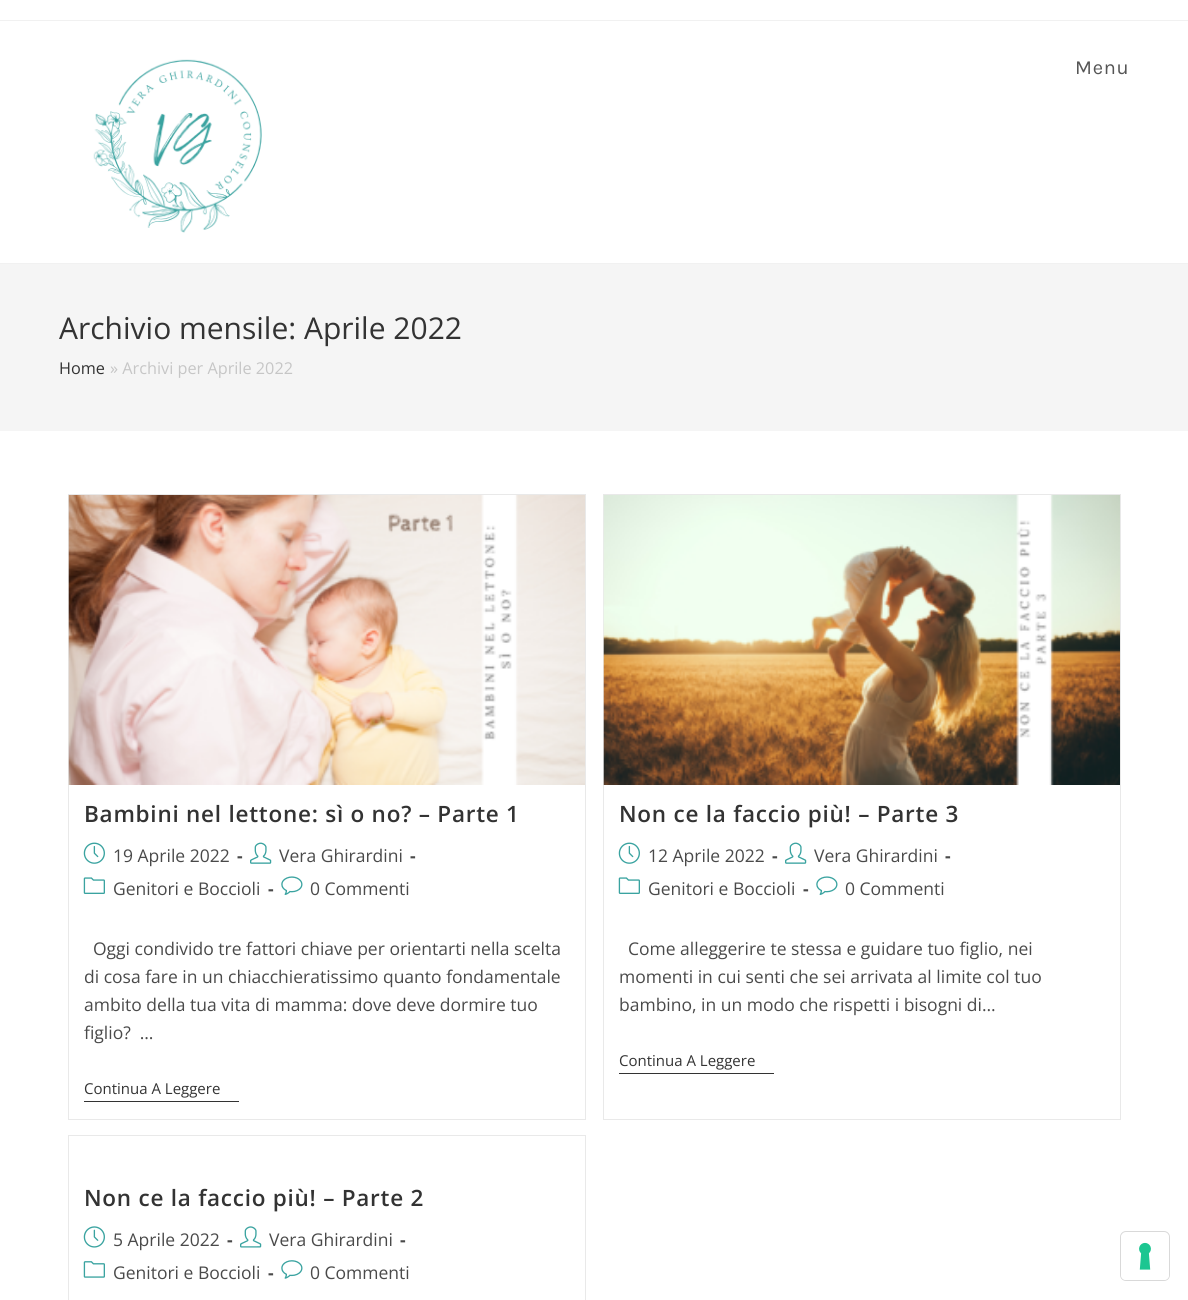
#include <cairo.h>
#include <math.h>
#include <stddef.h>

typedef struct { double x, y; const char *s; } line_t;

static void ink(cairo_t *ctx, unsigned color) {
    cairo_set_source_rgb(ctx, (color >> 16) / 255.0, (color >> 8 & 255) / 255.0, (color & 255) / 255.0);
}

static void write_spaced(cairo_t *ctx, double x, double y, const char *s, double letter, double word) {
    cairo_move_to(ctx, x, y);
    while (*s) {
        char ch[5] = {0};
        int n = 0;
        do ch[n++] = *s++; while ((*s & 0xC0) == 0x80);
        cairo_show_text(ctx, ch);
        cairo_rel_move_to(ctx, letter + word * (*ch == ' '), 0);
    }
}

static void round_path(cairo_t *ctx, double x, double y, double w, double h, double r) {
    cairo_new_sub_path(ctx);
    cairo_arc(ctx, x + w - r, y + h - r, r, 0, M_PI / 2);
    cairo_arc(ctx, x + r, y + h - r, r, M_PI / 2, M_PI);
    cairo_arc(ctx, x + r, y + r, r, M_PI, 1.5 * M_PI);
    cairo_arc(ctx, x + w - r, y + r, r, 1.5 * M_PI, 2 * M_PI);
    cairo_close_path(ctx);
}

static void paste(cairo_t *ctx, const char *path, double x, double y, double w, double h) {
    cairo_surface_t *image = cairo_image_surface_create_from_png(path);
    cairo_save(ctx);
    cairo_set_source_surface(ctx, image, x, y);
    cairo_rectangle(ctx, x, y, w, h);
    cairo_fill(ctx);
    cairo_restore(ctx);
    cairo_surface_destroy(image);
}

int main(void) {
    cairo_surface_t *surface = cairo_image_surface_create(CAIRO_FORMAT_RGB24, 1188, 1300);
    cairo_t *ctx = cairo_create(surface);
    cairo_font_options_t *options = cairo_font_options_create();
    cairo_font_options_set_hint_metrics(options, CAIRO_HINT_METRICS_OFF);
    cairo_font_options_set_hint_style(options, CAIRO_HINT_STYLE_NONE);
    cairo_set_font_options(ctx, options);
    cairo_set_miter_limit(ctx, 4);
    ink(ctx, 0xFFFFFF);
    cairo_paint(ctx);
    ink(ctx, 0xF1F1F1);
    cairo_rectangle(ctx, 0, 20, 1188, 1);
    cairo_fill(ctx);
    cairo_rectangle(ctx, 0, 263, 1188, 1);
    cairo_fill(ctx);
    paste(ctx, "media/1.png", 93, 59, 169, 174);
    cairo_select_font_face(ctx, "Karla", CAIRO_FONT_SLANT_NORMAL, CAIRO_FONT_WEIGHT_NORMAL);
    cairo_set_font_size(ctx, 20);
    ink(ctx, 0x555555);
    write_spaced(ctx, 1075, 74, "Menu", 0.75, 0);
    ink(ctx, 0xF5F5F5);
    cairo_rectangle(ctx, 0, 264, 1188, 167);
    cairo_fill(ctx);
    cairo_select_font_face(ctx, "Open Sans", CAIRO_FONT_SLANT_NORMAL, CAIRO_FONT_WEIGHT_NORMAL);
    cairo_set_font_size(ctx, 30);
    ink(ctx, 0x333333);
    cairo_move_to(ctx, 59, 339);
    cairo_show_text(ctx, "Archivio mensile: Aprile 2022");
    cairo_set_font_size(ctx, 16.25);
    cairo_move_to(ctx, 59, 374);
    cairo_show_text(ctx, "Home");
    ink(ctx, 0xC6C6C6);
    cairo_move_to(ctx, 110, 374);
    cairo_show_text(ctx, "» Archivi per Aprile 2022");
    cairo_rectangle(ctx, 68.5, 494.5, 517, 625);
    ink(ctx, 0xE9E9E9);
    cairo_set_line_width(ctx, 1);
    cairo_stroke(ctx);
    paste(ctx, "media/2.png", 68, 495, 517, 290);
    cairo_select_font_face(ctx, "Open Sans SemiBold", CAIRO_FONT_SLANT_NORMAL, CAIRO_FONT_WEIGHT_NORMAL);
    cairo_set_font_size(ctx, 22.5);
    ink(ctx, 0x333333);
    write_spaced(ctx, 84, 822, "Bambini nel lettone: sì o no? – Parte 1", 0.75, 0);
    paste(ctx, "media/3.png", 83, 842, 22, 22);
    cairo_select_font_face(ctx, "Open Sans", CAIRO_FONT_SLANT_NORMAL, CAIRO_FONT_WEIGHT_NORMAL);
    cairo_set_font_size(ctx, 17.5);
    ink(ctx, 0x4A4A4A);
    cairo_move_to(ctx, 113, 862);
    cairo_show_text(ctx, "19 Aprile 2022");
    cairo_select_font_face(ctx, "Open Sans", CAIRO_FONT_SLANT_NORMAL, CAIRO_FONT_WEIGHT_BOLD);
    cairo_move_to(ctx, 237, 862);
    cairo_show_text(ctx, "-");
    paste(ctx, "media/4.png", 250, 842, 22, 22);
    cairo_select_font_face(ctx, "Open Sans", CAIRO_FONT_SLANT_NORMAL, CAIRO_FONT_WEIGHT_NORMAL);
    cairo_move_to(ctx, 279, 862);
    cairo_show_text(ctx, "Vera Ghirardini");
    cairo_select_font_face(ctx, "Open Sans", CAIRO_FONT_SLANT_NORMAL, CAIRO_FONT_WEIGHT_BOLD);
    cairo_move_to(ctx, 410, 862);
    cairo_show_text(ctx, "-");
    paste(ctx, "media/5.png", 83, 877, 22, 17);
    cairo_select_font_face(ctx, "Open Sans", CAIRO_FONT_SLANT_NORMAL, CAIRO_FONT_WEIGHT_NORMAL);
    cairo_move_to(ctx, 113, 895);
    cairo_show_text(ctx, "Genitori e Boccioli");
    cairo_select_font_face(ctx, "Open Sans", CAIRO_FONT_SLANT_NORMAL, CAIRO_FONT_WEIGHT_BOLD);
    cairo_move_to(ctx, 268, 895);
    cairo_show_text(ctx, "-");
    paste(ctx, "media/6.png", 281, 876, 22, 19);
    cairo_select_font_face(ctx, "Open Sans", CAIRO_FONT_SLANT_NORMAL, CAIRO_FONT_WEIGHT_NORMAL);
    {
        static const line_t items[] = {
            {310, 895, "0 Commenti"},
            {93, 955, "Oggi condivido tre fattori chiave per orientarti nella scelta"},
            {84, 983, "di cosa fare in un chiacchieratissimo quanto fondamentale"},
            {84, 1011, "ambito della tua vita di mamma: dove deve dormire tuo"},
            {84, 1039, "figlio?  …"},
        };
        for (size_t i = 0; i < sizeof items / sizeof *items; i++) {
            cairo_move_to(ctx, items[i].x, items[i].y);
            cairo_show_text(ctx, items[i].s);
        }
    }
    ink(ctx, 0x333333);
    cairo_rectangle(ctx, 84, 1101, 155, 1);
    cairo_fill(ctx);
    cairo_set_font_size(ctx, 15);
    cairo_move_to(ctx, 84, 1094);
    cairo_show_text(ctx, "Continua A Leggere");
    cairo_rectangle(ctx, 603.5, 494.5, 517, 625);
    ink(ctx, 0xE9E9E9);
    cairo_stroke(ctx);
    paste(ctx, "media/7.png", 603, 495, 517, 290);
    cairo_select_font_face(ctx, "Open Sans SemiBold", CAIRO_FONT_SLANT_NORMAL, CAIRO_FONT_WEIGHT_NORMAL);
    cairo_set_font_size(ctx, 22.5);
    ink(ctx, 0x333333);
    write_spaced(ctx, 619, 822, "Non ce la faccio più! – Parte 3", 0.75, 0);
    paste(ctx, "media/3.png", 618, 842, 22, 22);
    cairo_select_font_face(ctx, "Open Sans", CAIRO_FONT_SLANT_NORMAL, CAIRO_FONT_WEIGHT_NORMAL);
    cairo_set_font_size(ctx, 17.5);
    ink(ctx, 0x4A4A4A);
    cairo_move_to(ctx, 648, 862);
    cairo_show_text(ctx, "12 Aprile 2022");
    cairo_select_font_face(ctx, "Open Sans", CAIRO_FONT_SLANT_NORMAL, CAIRO_FONT_WEIGHT_BOLD);
    cairo_move_to(ctx, 772, 862);
    cairo_show_text(ctx, "-");
    paste(ctx, "media/4.png", 785, 842, 22, 22);
    cairo_select_font_face(ctx, "Open Sans", CAIRO_FONT_SLANT_NORMAL, CAIRO_FONT_WEIGHT_NORMAL);
    cairo_move_to(ctx, 814, 862);
    cairo_show_text(ctx, "Vera Ghirardini");
    cairo_select_font_face(ctx, "Open Sans", CAIRO_FONT_SLANT_NORMAL, CAIRO_FONT_WEIGHT_BOLD);
    cairo_move_to(ctx, 945, 862);
    cairo_show_text(ctx, "-");
    paste(ctx, "media/5.png", 618, 877, 22, 17);
    cairo_select_font_face(ctx, "Open Sans", CAIRO_FONT_SLANT_NORMAL, CAIRO_FONT_WEIGHT_NORMAL);
    cairo_move_to(ctx, 648, 895);
    cairo_show_text(ctx, "Genitori e Boccioli");
    cairo_select_font_face(ctx, "Open Sans", CAIRO_FONT_SLANT_NORMAL, CAIRO_FONT_WEIGHT_BOLD);
    cairo_move_to(ctx, 803, 895);
    cairo_show_text(ctx, "-");
    paste(ctx, "media/6.png", 816, 876, 22, 19);
    cairo_select_font_face(ctx, "Open Sans", CAIRO_FONT_SLANT_NORMAL, CAIRO_FONT_WEIGHT_NORMAL);
    {
        static const line_t items[] = {
            {845, 895, "0 Commenti"},
            {628, 955, "Come alleggerire te stessa e guidare tuo figlio, nei"},
            {619, 983, "momenti in cui senti che sei arrivata al limite col tuo"},
            {619, 1011, "bambino, in un modo che rispetti i bisogni di…"},
        };
        for (size_t i = 0; i < sizeof items / sizeof *items; i++) {
            cairo_move_to(ctx, items[i].x, items[i].y);
            cairo_show_text(ctx, items[i].s);
        }
    }
    ink(ctx, 0x333333);
    cairo_rectangle(ctx, 619, 1073, 155, 1);
    cairo_fill(ctx);
    cairo_set_font_size(ctx, 15);
    cairo_move_to(ctx, 619, 1066);
    cairo_show_text(ctx, "Continua A Leggere");
    cairo_rectangle(ctx, 68.5, 1135.5, 517, 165);
    ink(ctx, 0xE9E9E9);
    cairo_stroke(ctx);
    cairo_select_font_face(ctx, "Open Sans SemiBold", CAIRO_FONT_SLANT_NORMAL, CAIRO_FONT_WEIGHT_NORMAL);
    cairo_set_font_size(ctx, 22.5);
    ink(ctx, 0x333333);
    write_spaced(ctx, 84, 1206, "Non ce la faccio più! – Parte 2", 0.75, 0);
    paste(ctx, "media/8.png", 83, 1226, 22, 22);
    cairo_select_font_face(ctx, "Open Sans", CAIRO_FONT_SLANT_NORMAL, CAIRO_FONT_WEIGHT_NORMAL);
    cairo_set_font_size(ctx, 17.5);
    ink(ctx, 0x4A4A4A);
    cairo_move_to(ctx, 113, 1246);
    cairo_show_text(ctx, "5 Aprile 2022");
    cairo_select_font_face(ctx, "Open Sans", CAIRO_FONT_SLANT_NORMAL, CAIRO_FONT_WEIGHT_BOLD);
    cairo_move_to(ctx, 227, 1246);
    cairo_show_text(ctx, "-");
    paste(ctx, "media/9.png", 240, 1226, 22, 22);
    cairo_select_font_face(ctx, "Open Sans", CAIRO_FONT_SLANT_NORMAL, CAIRO_FONT_WEIGHT_NORMAL);
    cairo_move_to(ctx, 269, 1246);
    cairo_show_text(ctx, "Vera Ghirardini");
    cairo_select_font_face(ctx, "Open Sans", CAIRO_FONT_SLANT_NORMAL, CAIRO_FONT_WEIGHT_BOLD);
    cairo_move_to(ctx, 400, 1246);
    cairo_show_text(ctx, "-");
    paste(ctx, "media/10.png", 83, 1261, 22, 17);
    cairo_select_font_face(ctx, "Open Sans", CAIRO_FONT_SLANT_NORMAL, CAIRO_FONT_WEIGHT_NORMAL);
    cairo_move_to(ctx, 113, 1279);
    cairo_show_text(ctx, "Genitori e Boccioli");
    cairo_select_font_face(ctx, "Open Sans", CAIRO_FONT_SLANT_NORMAL, CAIRO_FONT_WEIGHT_BOLD);
    cairo_move_to(ctx, 268, 1279);
    cairo_show_text(ctx, "-");
    paste(ctx, "media/11.png", 281, 1260, 22, 19);
    cairo_select_font_face(ctx, "Open Sans", CAIRO_FONT_SLANT_NORMAL, CAIRO_FONT_WEIGHT_NORMAL);
    cairo_move_to(ctx, 310, 1279);
    cairo_show_text(ctx, "0 Commenti");
    round_path(ctx, 1120.5, 1231.5, 49, 49, 5.5);
    ink(ctx, 0xD9D9D9);
    cairo_stroke(ctx);
    ink(ctx, 0xFFFFFF);
    round_path(ctx, 1121, 1233, 48, 47, 5);
    cairo_fill(ctx);
    paste(ctx, "media/12.png", 1139, 1242, 12, 28);
    cairo_surface_write_to_png(surface, "image.png");
    cairo_font_options_destroy(options);
    cairo_destroy(ctx);
    cairo_surface_destroy(surface);
    return 0;
}
